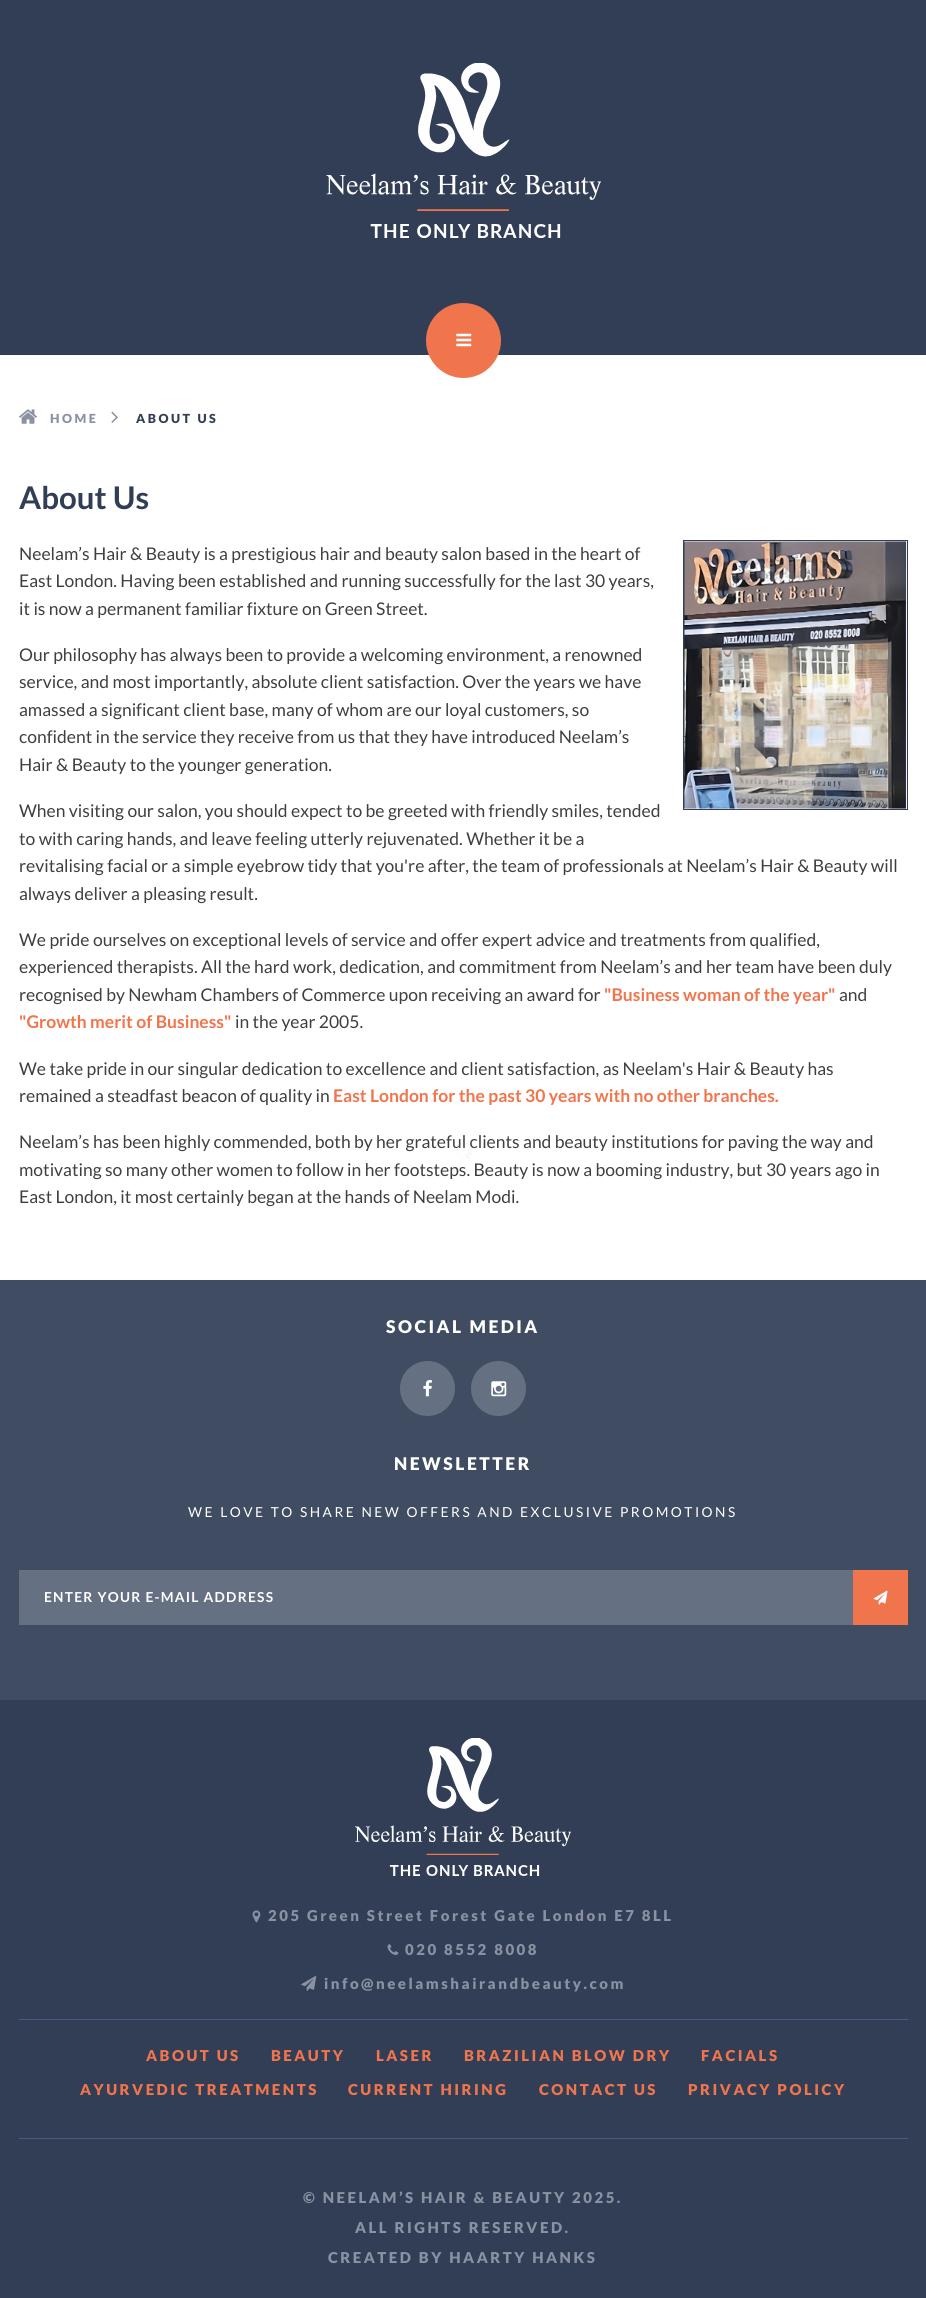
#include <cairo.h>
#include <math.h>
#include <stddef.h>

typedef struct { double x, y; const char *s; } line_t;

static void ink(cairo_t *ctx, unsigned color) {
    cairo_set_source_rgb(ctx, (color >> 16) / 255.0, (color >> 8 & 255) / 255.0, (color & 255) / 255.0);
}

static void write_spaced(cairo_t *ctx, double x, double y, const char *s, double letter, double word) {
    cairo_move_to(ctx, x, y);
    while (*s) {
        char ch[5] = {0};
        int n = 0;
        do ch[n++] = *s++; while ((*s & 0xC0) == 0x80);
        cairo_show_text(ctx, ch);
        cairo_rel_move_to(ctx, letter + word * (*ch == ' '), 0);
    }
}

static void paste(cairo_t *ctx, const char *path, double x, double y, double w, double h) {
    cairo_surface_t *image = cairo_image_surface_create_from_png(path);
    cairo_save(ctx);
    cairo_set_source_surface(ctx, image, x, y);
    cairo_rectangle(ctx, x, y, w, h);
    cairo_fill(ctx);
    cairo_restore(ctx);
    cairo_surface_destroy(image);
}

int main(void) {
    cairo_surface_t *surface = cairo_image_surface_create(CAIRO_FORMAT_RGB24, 926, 2298);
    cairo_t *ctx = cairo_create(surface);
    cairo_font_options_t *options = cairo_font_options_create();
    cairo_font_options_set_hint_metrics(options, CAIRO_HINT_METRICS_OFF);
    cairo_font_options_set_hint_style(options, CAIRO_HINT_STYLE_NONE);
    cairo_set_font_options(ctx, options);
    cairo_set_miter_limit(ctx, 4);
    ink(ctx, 0xFFFFFF);
    cairo_paint(ctx);
    ink(ctx, 0x313E55);
    cairo_rectangle(ctx, 0, 0, 926, 355);
    cairo_fill(ctx);
    paste(ctx, "media/1.png", 326, 63, 275, 175);
    ink(ctx, 0xF1754C);
    cairo_arc(ctx, 463.5, 340.5, 37.5, 0, 2 * M_PI);
    cairo_fill(ctx);
    paste(ctx, "media/2.png", 456, 333, 16, 14);
    paste(ctx, "media/3.png", 19, 409, 18, 15);
    cairo_select_font_face(ctx, "Lato Black", CAIRO_FONT_SLANT_NORMAL, CAIRO_FONT_WEIGHT_NORMAL);
    cairo_set_font_size(ctx, 12.5);
    ink(ctx, 0x8991A2);
    write_spaced(ctx, 50, 423, "HOME", 2.5, 0);
    paste(ctx, "media/4.png", 111, 411, 7, 12);
    ink(ctx, 0x313E55);
    write_spaced(ctx, 136, 423, "ABOUT US", 2.5, 0);
    cairo_select_font_face(ctx, "Lato", CAIRO_FONT_SLANT_NORMAL, CAIRO_FONT_WEIGHT_BOLD);
    cairo_set_font_size(ctx, 31.25);
    cairo_move_to(ctx, 19, 509);
    cairo_show_text(ctx, "About Us");
    cairo_select_font_face(ctx, "Lato", CAIRO_FONT_SLANT_NORMAL, CAIRO_FONT_WEIGHT_NORMAL);
    cairo_set_font_size(ctx, 17.5);
    ink(ctx, 0x3F3F3F);
    {
        static const line_t items[] = {
            {19, 560, "Neelam’s Hair & Beauty is a prestigious hair and beauty salon based in the heart of"},
            {19, 587, "East London. Having been established and running successfully for the last 30 years,"},
            {19, 615, "it is now a permanent familiar fixture on Green Street."},
        };
        for (size_t i = 0; i < sizeof items / sizeof *items; i++) {
            cairo_move_to(ctx, items[i].x, items[i].y);
            cairo_show_text(ctx, items[i].s);
        }
    }
    cairo_rectangle(ctx, 683.5, 540.5, 224, 269);
    ink(ctx, 0x313E55);
    cairo_set_line_width(ctx, 1);
    cairo_stroke(ctx);
    paste(ctx, "media/5.png", 684, 541, 223, 268);
    ink(ctx, 0x3F3F3F);
    {
        static const line_t items[] = {
            {19, 661, "Our philosophy has always been to provide a welcoming environment, a renowned"},
            {19, 688, "service, and most importantly, absolute client satisfaction. Over the years we have"},
            {19, 716, "amassed a significant client base, many of whom are our loyal customers, so"},
            {19, 743, "confident in the service they receive from us that they have introduced Neelam’s"},
            {19, 771, "Hair & Beauty to the younger generation."},
            {19, 817, "When visiting our salon, you should expect to be greeted with friendly smiles, tended"},
            {19, 845, "to with caring hands, and leave feeling utterly rejuvenated. Whether it be a"},
            {19, 872, "revitalising facial or a simple eyebrow tidy that you're after, the team of professionals at Neelam’s Hair & Beauty will"},
            {19, 900, "always deliver a pleasing result."},
            {19, 946, "We pride ourselves on exceptional levels of service and offer expert advice and treatments from qualified,"},
            {19, 973, "experienced therapists. All the hard work, dedication, and commitment from Neelam’s and her team have been duly"},
            {19, 1001, "recognised by Newham Chambers of Commerce upon receiving an award for"},
        };
        for (size_t i = 0; i < sizeof items / sizeof *items; i++) {
            cairo_move_to(ctx, items[i].x, items[i].y);
            cairo_show_text(ctx, items[i].s);
        }
    }
    cairo_select_font_face(ctx, "Lato", CAIRO_FONT_SLANT_NORMAL, CAIRO_FONT_WEIGHT_BOLD);
    ink(ctx, 0xF1754C);
    cairo_move_to(ctx, 604, 1001);
    cairo_show_text(ctx, "\"Business woman of the year\"");
    cairo_select_font_face(ctx, "Lato", CAIRO_FONT_SLANT_NORMAL, CAIRO_FONT_WEIGHT_NORMAL);
    ink(ctx, 0x3F3F3F);
    cairo_move_to(ctx, 839, 1001);
    cairo_show_text(ctx, "and");
    cairo_select_font_face(ctx, "Lato", CAIRO_FONT_SLANT_NORMAL, CAIRO_FONT_WEIGHT_BOLD);
    ink(ctx, 0xF1754C);
    cairo_move_to(ctx, 19, 1028);
    cairo_show_text(ctx, "\"Growth merit of Business\"");
    cairo_select_font_face(ctx, "Lato", CAIRO_FONT_SLANT_NORMAL, CAIRO_FONT_WEIGHT_NORMAL);
    ink(ctx, 0x3F3F3F);
    {
        static const line_t items[] = {
            {235, 1028, "in the year 2005."},
            {19, 1075, "We take pride in our singular dedication to excellence and client satisfaction, as Neelam's Hair & Beauty has"},
            {19, 1102, "remained a steadfast beacon of quality in"},
        };
        for (size_t i = 0; i < sizeof items / sizeof *items; i++) {
            cairo_move_to(ctx, items[i].x, items[i].y);
            cairo_show_text(ctx, items[i].s);
        }
    }
    cairo_select_font_face(ctx, "Lato", CAIRO_FONT_SLANT_NORMAL, CAIRO_FONT_WEIGHT_BOLD);
    ink(ctx, 0xF1754C);
    cairo_move_to(ctx, 333, 1102);
    cairo_show_text(ctx, "East London for the past 30 years with no other branches.");
    cairo_select_font_face(ctx, "Lato", CAIRO_FONT_SLANT_NORMAL, CAIRO_FONT_WEIGHT_NORMAL);
    ink(ctx, 0x3F3F3F);
    {
        static const line_t items[] = {
            {19, 1148, "Neelam’s has been highly commended, both by her grateful clients and beauty institutions for paving the way and"},
            {19, 1176, "motivating so many other women to follow in her footsteps. Beauty is now a booming industry, but 30 years ago in"},
            {19, 1203, "East London, it most certainly began at the hands of Neelam Modi."},
        };
        for (size_t i = 0; i < sizeof items / sizeof *items; i++) {
            cairo_move_to(ctx, items[i].x, items[i].y);
            cairo_show_text(ctx, items[i].s);
        }
    }
    paste(ctx, "media/6.png", 454, 1140, 20, 19);
    ink(ctx, 0x404C61);
    cairo_rectangle(ctx, 0, 1280, 926, 420);
    cairo_fill(ctx);
    cairo_select_font_face(ctx, "Lato Black", CAIRO_FONT_SLANT_NORMAL, CAIRO_FONT_WEIGHT_NORMAL);
    ink(ctx, 0xFFFFFF);
    write_spaced(ctx, 386, 1333, "SOCIAL MEDIA", 2.5, 0);
    ink(ctx, 0x667083);
    cairo_new_path(ctx);
    cairo_arc(ctx, 427.5, 1388.5, 27.5, 0, 2 * M_PI);
    cairo_fill(ctx);
    paste(ctx, "media/7.png", 423, 1380, 9, 17);
    cairo_arc(ctx, 498.5, 1388.5, 27.5, 0, 2 * M_PI);
    cairo_fill(ctx);
    paste(ctx, "media/8.png", 491, 1381, 16, 16);
    ink(ctx, 0xFFFFFF);
    write_spaced(ctx, 394, 1470, "NEWSLETTER", 2.5, 0);
    cairo_select_font_face(ctx, "Lato", CAIRO_FONT_SLANT_NORMAL, CAIRO_FONT_WEIGHT_NORMAL);
    cairo_set_font_size(ctx, 13.75);
    write_spaced(ctx, 188, 1517, "WE LOVE TO SHARE NEW OFFERS AND EXCLUSIVE PROMOTIONS", 2.5, 0);
    ink(ctx, 0x667083);
    cairo_rectangle(ctx, 19, 1570, 834, 55);
    cairo_fill(ctx);
    cairo_select_font_face(ctx, "Lato", CAIRO_FONT_SLANT_NORMAL, CAIRO_FONT_WEIGHT_BOLD);
    ink(ctx, 0xFFFFFF);
    write_spaced(ctx, 44, 1602, "ENTER YOUR E-MAIL ADDRESS", 1.25, 0);
    ink(ctx, 0xF1754C);
    cairo_rectangle(ctx, 853, 1570, 55, 55);
    cairo_fill(ctx);
    paste(ctx, "media/9.png", 873, 1590, 15, 15);
    ink(ctx, 0x313E55);
    cairo_rectangle(ctx, 0, 1700, 926, 598);
    cairo_fill(ctx);
    paste(ctx, "media/10.png", 355, 1738, 216, 138);
    ink(ctx, 0x455B7F);
    cairo_rectangle(ctx, 19, 2019, 889, 1);
    cairo_fill(ctx);
    paste(ctx, "media/11.png", 252, 1910, 9, 13);
    cairo_select_font_face(ctx, "Lato Black", CAIRO_FONT_SLANT_NORMAL, CAIRO_FONT_WEIGHT_NORMAL);
    cairo_set_font_size(ctx, 15);
    ink(ctx, 0x8991A2);
    write_spaced(ctx, 268, 1921, "205 Green Street Forest Gate London E7 8LL", 2.5, 0);
    paste(ctx, "media/12.png", 387, 1944, 12, 11);
    write_spaced(ctx, 405, 1955, "020 8552 8008", 2.5, 0);
    paste(ctx, "media/13.png", 301, 1976, 16, 15);
    write_spaced(ctx, 324, 1989, "info@neelamshairandbeauty.com", 2.5, 0);
    ink(ctx, 0x455B7F);
    cairo_rectangle(ctx, 19, 2138, 889, 1);
    cairo_fill(ctx);
    ink(ctx, 0xF1754C);
    {
        static const line_t items[] = {
            {146, 2061, "ABOUT US"},
            {271, 2061, "BEAUTY"},
            {376, 2061, "LASER"},
            {464, 2061, "BRAZILIAN BLOW DRY"},
            {701, 2061, "FACIALS"},
            {80, 2095, "AYURVEDIC TREATMENTS"},
            {348, 2095, "CURRENT HIRING"},
            {539, 2095, "CONTACT US"},
            {688, 2095, "PRIVACY POLICY"},
        };
        for (size_t i = 0; i < sizeof items / sizeof *items; i++) {
            write_spaced(ctx, items[i].x, items[i].y, items[i].s, 2.5, 0);
        }
    }
    ink(ctx, 0x8991A2);
    {
        static const line_t items[] = {
            {303, 2203, "© NEELAM’S HAIR & BEAUTY 2025."},
            {355, 2233, "ALL RIGHTS RESERVED."},
            {328, 2263, "CREATED BY HAARTY HANKS"},
        };
        for (size_t i = 0; i < sizeof items / sizeof *items; i++) {
            write_spaced(ctx, items[i].x, items[i].y, items[i].s, 2.5, 0);
        }
    }
    cairo_surface_write_to_png(surface, "image.png");
    cairo_font_options_destroy(options);
    cairo_destroy(ctx);
    cairo_surface_destroy(surface);
    return 0;
}
